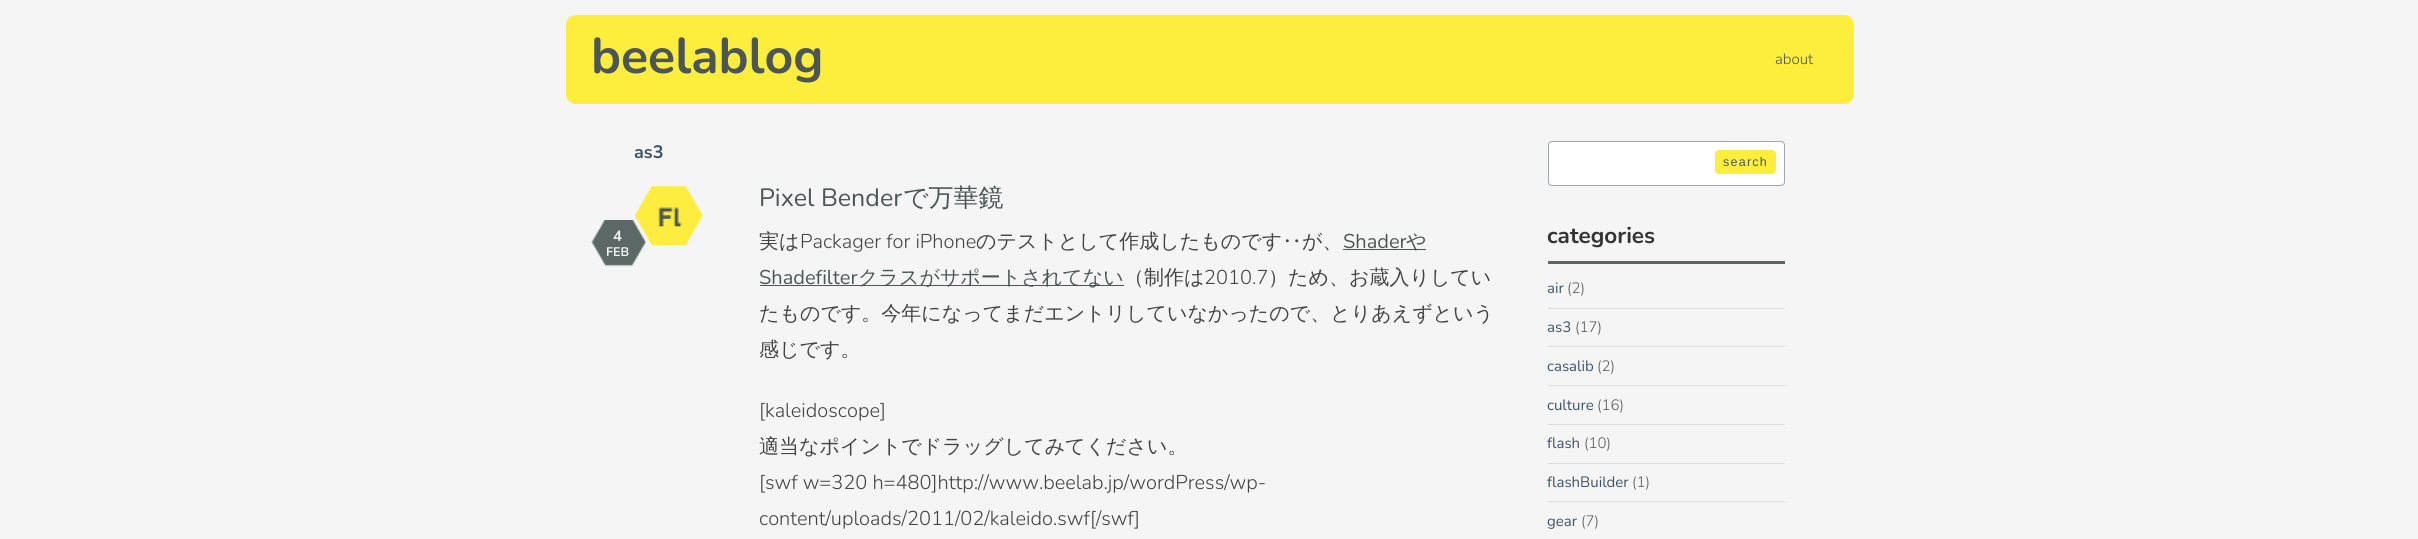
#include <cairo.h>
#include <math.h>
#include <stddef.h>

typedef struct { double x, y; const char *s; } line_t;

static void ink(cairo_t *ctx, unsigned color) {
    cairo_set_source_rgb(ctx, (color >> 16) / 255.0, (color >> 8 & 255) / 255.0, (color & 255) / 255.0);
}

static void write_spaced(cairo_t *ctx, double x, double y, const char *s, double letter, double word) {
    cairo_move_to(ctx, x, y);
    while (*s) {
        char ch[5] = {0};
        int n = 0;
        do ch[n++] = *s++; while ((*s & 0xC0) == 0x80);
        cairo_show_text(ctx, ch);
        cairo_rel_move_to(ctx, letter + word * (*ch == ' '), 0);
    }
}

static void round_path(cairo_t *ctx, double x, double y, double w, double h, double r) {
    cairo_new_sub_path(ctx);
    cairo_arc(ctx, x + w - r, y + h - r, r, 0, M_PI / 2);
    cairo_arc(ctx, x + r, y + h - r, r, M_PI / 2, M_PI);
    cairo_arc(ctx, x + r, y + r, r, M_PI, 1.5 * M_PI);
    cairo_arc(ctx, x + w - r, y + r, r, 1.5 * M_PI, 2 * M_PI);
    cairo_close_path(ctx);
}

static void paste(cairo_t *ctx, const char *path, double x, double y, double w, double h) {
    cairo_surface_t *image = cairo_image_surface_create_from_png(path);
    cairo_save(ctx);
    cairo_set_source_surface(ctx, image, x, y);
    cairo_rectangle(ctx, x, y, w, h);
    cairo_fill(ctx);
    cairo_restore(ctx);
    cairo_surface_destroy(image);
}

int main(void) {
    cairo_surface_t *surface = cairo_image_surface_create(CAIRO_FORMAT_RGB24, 2418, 539);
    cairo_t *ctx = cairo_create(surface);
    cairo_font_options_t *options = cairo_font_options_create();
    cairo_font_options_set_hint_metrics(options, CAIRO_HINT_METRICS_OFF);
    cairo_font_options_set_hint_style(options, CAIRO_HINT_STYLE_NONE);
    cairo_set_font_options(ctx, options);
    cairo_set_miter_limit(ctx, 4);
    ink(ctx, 0xF5F5F5);
    cairo_paint(ctx);
    ink(ctx, 0xFDEE3E);
    round_path(ctx, 566, 15, 1288, 89, 10);
    cairo_fill(ctx);
    cairo_select_font_face(ctx, "Nunito", CAIRO_FONT_SLANT_NORMAL, CAIRO_FONT_WEIGHT_BOLD);
    cairo_set_font_size(ctx, 50);
    ink(ctx, 0x4B5756);
    cairo_move_to(ctx, 591, 73);
    cairo_show_text(ctx, "beelablog");
    cairo_select_font_face(ctx, "Nunito Light", CAIRO_FONT_SLANT_NORMAL, CAIRO_FONT_WEIGHT_NORMAL);
    cairo_set_font_size(ctx, 15);
    cairo_move_to(ctx, 1775, 64);
    cairo_show_text(ctx, "about");
    cairo_select_font_face(ctx, "Nunito", CAIRO_FONT_SLANT_NORMAL, CAIRO_FONT_WEIGHT_BOLD);
    cairo_set_font_size(ctx, 18);
    ink(ctx, 0x3D536C);
    cairo_move_to(ctx, 634, 158);
    cairo_show_text(ctx, "as3");
    paste(ctx, "media/1.png", 591, 220, 56, 47);
    cairo_set_font_size(ctx, 15);
    ink(ctx, 0xF0F0F0);
    cairo_move_to(ctx, 613, 241);
    cairo_show_text(ctx, "4");
    cairo_set_font_size(ctx, 12.5);
    cairo_move_to(ctx, 606, 256);
    cairo_show_text(ctx, "FEB");
    paste(ctx, "media/2.png", 635, 186, 68, 59);
    cairo_select_font_face(ctx, "Nunito", CAIRO_FONT_SLANT_NORMAL, CAIRO_FONT_WEIGHT_NORMAL);
    cairo_set_font_size(ctx, 25);
    ink(ctx, 0x4B5756);
    cairo_move_to(ctx, 759, 206);
    cairo_show_text(ctx, "Pixel Bender");
    cairo_select_font_face(ctx, "WenQuanYi Zen Hei Medium", CAIRO_FONT_SLANT_NORMAL, CAIRO_FONT_WEIGHT_NORMAL);
    cairo_move_to(ctx, 903, 206);
    cairo_show_text(ctx, "で万華鏡");
    cairo_set_font_size(ctx, 20);
    ink(ctx, 0x444444);
    cairo_move_to(ctx, 759, 248);
    cairo_show_text(ctx, "実は");
    cairo_select_font_face(ctx, "Nunito Light", CAIRO_FONT_SLANT_NORMAL, CAIRO_FONT_WEIGHT_NORMAL);
    cairo_move_to(ctx, 800, 248);
    cairo_show_text(ctx, "Packager for iPhone");
    cairo_select_font_face(ctx, "WenQuanYi Zen Hei Medium", CAIRO_FONT_SLANT_NORMAL, CAIRO_FONT_WEIGHT_NORMAL);
    cairo_move_to(ctx, 976, 248);
    cairo_show_text(ctx, "のテストとして作成したものです‥が、");
    cairo_select_font_face(ctx, "Nunito", CAIRO_FONT_SLANT_NORMAL, CAIRO_FONT_WEIGHT_NORMAL);
    ink(ctx, 0x4B5756);
    cairo_move_to(ctx, 1343, 248);
    cairo_show_text(ctx, "Shader");
    cairo_rectangle(ctx, 1343, 249, 83, 1);
    cairo_fill(ctx);
    cairo_select_font_face(ctx, "WenQuanYi Zen Hei Medium", CAIRO_FONT_SLANT_NORMAL, CAIRO_FONT_WEIGHT_NORMAL);
    cairo_move_to(ctx, 1406, 248);
    cairo_show_text(ctx, "や");
    cairo_select_font_face(ctx, "Nunito", CAIRO_FONT_SLANT_NORMAL, CAIRO_FONT_WEIGHT_NORMAL);
    cairo_move_to(ctx, 759, 284);
    cairo_show_text(ctx, "Shadefilter");
    cairo_rectangle(ctx, 760, 285, 364, 1);
    cairo_fill(ctx);
    cairo_select_font_face(ctx, "WenQuanYi Zen Hei Medium", CAIRO_FONT_SLANT_NORMAL, CAIRO_FONT_WEIGHT_NORMAL);
    cairo_move_to(ctx, 858, 284);
    cairo_show_text(ctx, "クラスがサポートされてない");
    ink(ctx, 0x444444);
    cairo_move_to(ctx, 1124, 284);
    cairo_show_text(ctx, "（制作は");
    cairo_select_font_face(ctx, "Nunito Light", CAIRO_FONT_SLANT_NORMAL, CAIRO_FONT_WEIGHT_NORMAL);
    cairo_move_to(ctx, 1204, 284);
    cairo_show_text(ctx, "2010.7");
    cairo_select_font_face(ctx, "WenQuanYi Zen Hei Medium", CAIRO_FONT_SLANT_NORMAL, CAIRO_FONT_WEIGHT_NORMAL);
    {
        static const line_t items[] = {
            {1268, 284, "）ため、お蔵入りしてい"},
            {759, 320, "たものです。今年になってまだエントリしていなかったので、とりあえずという"},
            {759, 356, "感じです。"},
        };
        for (size_t i = 0; i < sizeof items / sizeof *items; i++) {
            cairo_move_to(ctx, items[i].x, items[i].y);
            cairo_show_text(ctx, items[i].s);
        }
    }
    cairo_select_font_face(ctx, "Nunito Light", CAIRO_FONT_SLANT_NORMAL, CAIRO_FONT_WEIGHT_NORMAL);
    cairo_move_to(ctx, 759, 417);
    cairo_show_text(ctx, "[kaleidoscope]");
    cairo_select_font_face(ctx, "WenQuanYi Zen Hei Medium", CAIRO_FONT_SLANT_NORMAL, CAIRO_FONT_WEIGHT_NORMAL);
    cairo_move_to(ctx, 759, 453);
    cairo_show_text(ctx, "適当なポイントでドラッグしてみてください。");
    cairo_select_font_face(ctx, "Nunito Light", CAIRO_FONT_SLANT_NORMAL, CAIRO_FONT_WEIGHT_NORMAL);
    cairo_move_to(ctx, 759, 489);
    cairo_show_text(ctx, "[swf w=320 h=480]http://www.beelab.jp/wordPress/wp-");
    cairo_move_to(ctx, 759, 525);
    cairo_show_text(ctx, "content/uploads/2011/02/kaleido.swf[/swf]");
    ink(ctx, 0xFFFFFF);
    round_path(ctx, 1548.5, 141.5, 236, 44, 3.5);
    cairo_fill_preserve(ctx);
    ink(ctx, 0x9BA6AE);
    cairo_set_line_width(ctx, 1);
    cairo_stroke(ctx);
    ink(ctx, 0xFDEE3E);
    round_path(ctx, 1715, 150, 61, 24, 4);
    cairo_fill(ctx);
    cairo_select_font_face(ctx, "Liberation Sans", CAIRO_FONT_SLANT_NORMAL, CAIRO_FONT_WEIGHT_NORMAL);
    cairo_set_font_size(ctx, 12.5);
    ink(ctx, 0x4B5756);
    write_spaced(ctx, 1723, 166, "search", 1.25, 0);
    ink(ctx, 0x5B6666);
    cairo_rectangle(ctx, 1548, 261, 237, 3);
    cairo_fill(ctx);
    cairo_select_font_face(ctx, "Nunito", CAIRO_FONT_SLANT_NORMAL, CAIRO_FONT_WEIGHT_BOLD);
    cairo_set_font_size(ctx, 22.5);
    ink(ctx, 0x333333);
    cairo_move_to(ctx, 1547, 243);
    cairo_show_text(ctx, "categories");
    ink(ctx, 0xDDDDDD);
    cairo_rectangle(ctx, 1548, 308, 237, 1);
    cairo_fill(ctx);
    cairo_select_font_face(ctx, "Nunito", CAIRO_FONT_SLANT_NORMAL, CAIRO_FONT_WEIGHT_NORMAL);
    cairo_set_font_size(ctx, 15);
    ink(ctx, 0x3D536C);
    cairo_move_to(ctx, 1547, 293);
    cairo_show_text(ctx, "air");
    cairo_select_font_face(ctx, "Nunito Light", CAIRO_FONT_SLANT_NORMAL, CAIRO_FONT_WEIGHT_NORMAL);
    ink(ctx, 0x595959);
    cairo_move_to(ctx, 1567, 293);
    cairo_show_text(ctx, "(2)");
    ink(ctx, 0xDDDDDD);
    cairo_rectangle(ctx, 1548, 346, 237, 1);
    cairo_fill(ctx);
    cairo_select_font_face(ctx, "Nunito", CAIRO_FONT_SLANT_NORMAL, CAIRO_FONT_WEIGHT_NORMAL);
    ink(ctx, 0x3D536C);
    cairo_move_to(ctx, 1547, 332);
    cairo_show_text(ctx, "as3");
    cairo_select_font_face(ctx, "Nunito Light", CAIRO_FONT_SLANT_NORMAL, CAIRO_FONT_WEIGHT_NORMAL);
    ink(ctx, 0x595959);
    cairo_move_to(ctx, 1575, 332);
    cairo_show_text(ctx, "(17)");
    ink(ctx, 0xDDDDDD);
    cairo_rectangle(ctx, 1548, 385, 237, 1);
    cairo_fill(ctx);
    cairo_select_font_face(ctx, "Nunito", CAIRO_FONT_SLANT_NORMAL, CAIRO_FONT_WEIGHT_NORMAL);
    ink(ctx, 0x3D536C);
    cairo_move_to(ctx, 1547, 371);
    cairo_show_text(ctx, "casalib");
    cairo_select_font_face(ctx, "Nunito Light", CAIRO_FONT_SLANT_NORMAL, CAIRO_FONT_WEIGHT_NORMAL);
    ink(ctx, 0x595959);
    cairo_move_to(ctx, 1597, 371);
    cairo_show_text(ctx, "(2)");
    ink(ctx, 0xDDDDDD);
    cairo_rectangle(ctx, 1548, 424, 237, 1);
    cairo_fill(ctx);
    cairo_select_font_face(ctx, "Nunito", CAIRO_FONT_SLANT_NORMAL, CAIRO_FONT_WEIGHT_NORMAL);
    ink(ctx, 0x3D536C);
    cairo_move_to(ctx, 1547, 410);
    cairo_show_text(ctx, "culture");
    cairo_select_font_face(ctx, "Nunito Light", CAIRO_FONT_SLANT_NORMAL, CAIRO_FONT_WEIGHT_NORMAL);
    ink(ctx, 0x595959);
    cairo_move_to(ctx, 1597, 410);
    cairo_show_text(ctx, "(16)");
    ink(ctx, 0xDDDDDD);
    cairo_rectangle(ctx, 1548, 463, 237, 1);
    cairo_fill(ctx);
    cairo_select_font_face(ctx, "Nunito", CAIRO_FONT_SLANT_NORMAL, CAIRO_FONT_WEIGHT_NORMAL);
    ink(ctx, 0x3D536C);
    cairo_move_to(ctx, 1547, 448);
    cairo_show_text(ctx, "flash");
    cairo_select_font_face(ctx, "Nunito Light", CAIRO_FONT_SLANT_NORMAL, CAIRO_FONT_WEIGHT_NORMAL);
    ink(ctx, 0x595959);
    cairo_move_to(ctx, 1584, 448);
    cairo_show_text(ctx, "(10)");
    ink(ctx, 0xDDDDDD);
    cairo_rectangle(ctx, 1548, 501, 237, 1);
    cairo_fill(ctx);
    cairo_select_font_face(ctx, "Nunito", CAIRO_FONT_SLANT_NORMAL, CAIRO_FONT_WEIGHT_NORMAL);
    ink(ctx, 0x3D536C);
    cairo_move_to(ctx, 1547, 487);
    cairo_show_text(ctx, "flashBuilder");
    cairo_select_font_face(ctx, "Nunito Light", CAIRO_FONT_SLANT_NORMAL, CAIRO_FONT_WEIGHT_NORMAL);
    ink(ctx, 0x595959);
    cairo_move_to(ctx, 1632, 487);
    cairo_show_text(ctx, "(1)");
    cairo_select_font_face(ctx, "Nunito", CAIRO_FONT_SLANT_NORMAL, CAIRO_FONT_WEIGHT_NORMAL);
    ink(ctx, 0x3D536C);
    cairo_move_to(ctx, 1547, 526);
    cairo_show_text(ctx, "gear");
    cairo_select_font_face(ctx, "Nunito Light", CAIRO_FONT_SLANT_NORMAL, CAIRO_FONT_WEIGHT_NORMAL);
    ink(ctx, 0x595959);
    cairo_move_to(ctx, 1581, 526);
    cairo_show_text(ctx, "(7)");
    cairo_surface_write_to_png(surface, "image.png");
    cairo_font_options_destroy(options);
    cairo_destroy(ctx);
    cairo_surface_destroy(surface);
    return 0;
}
